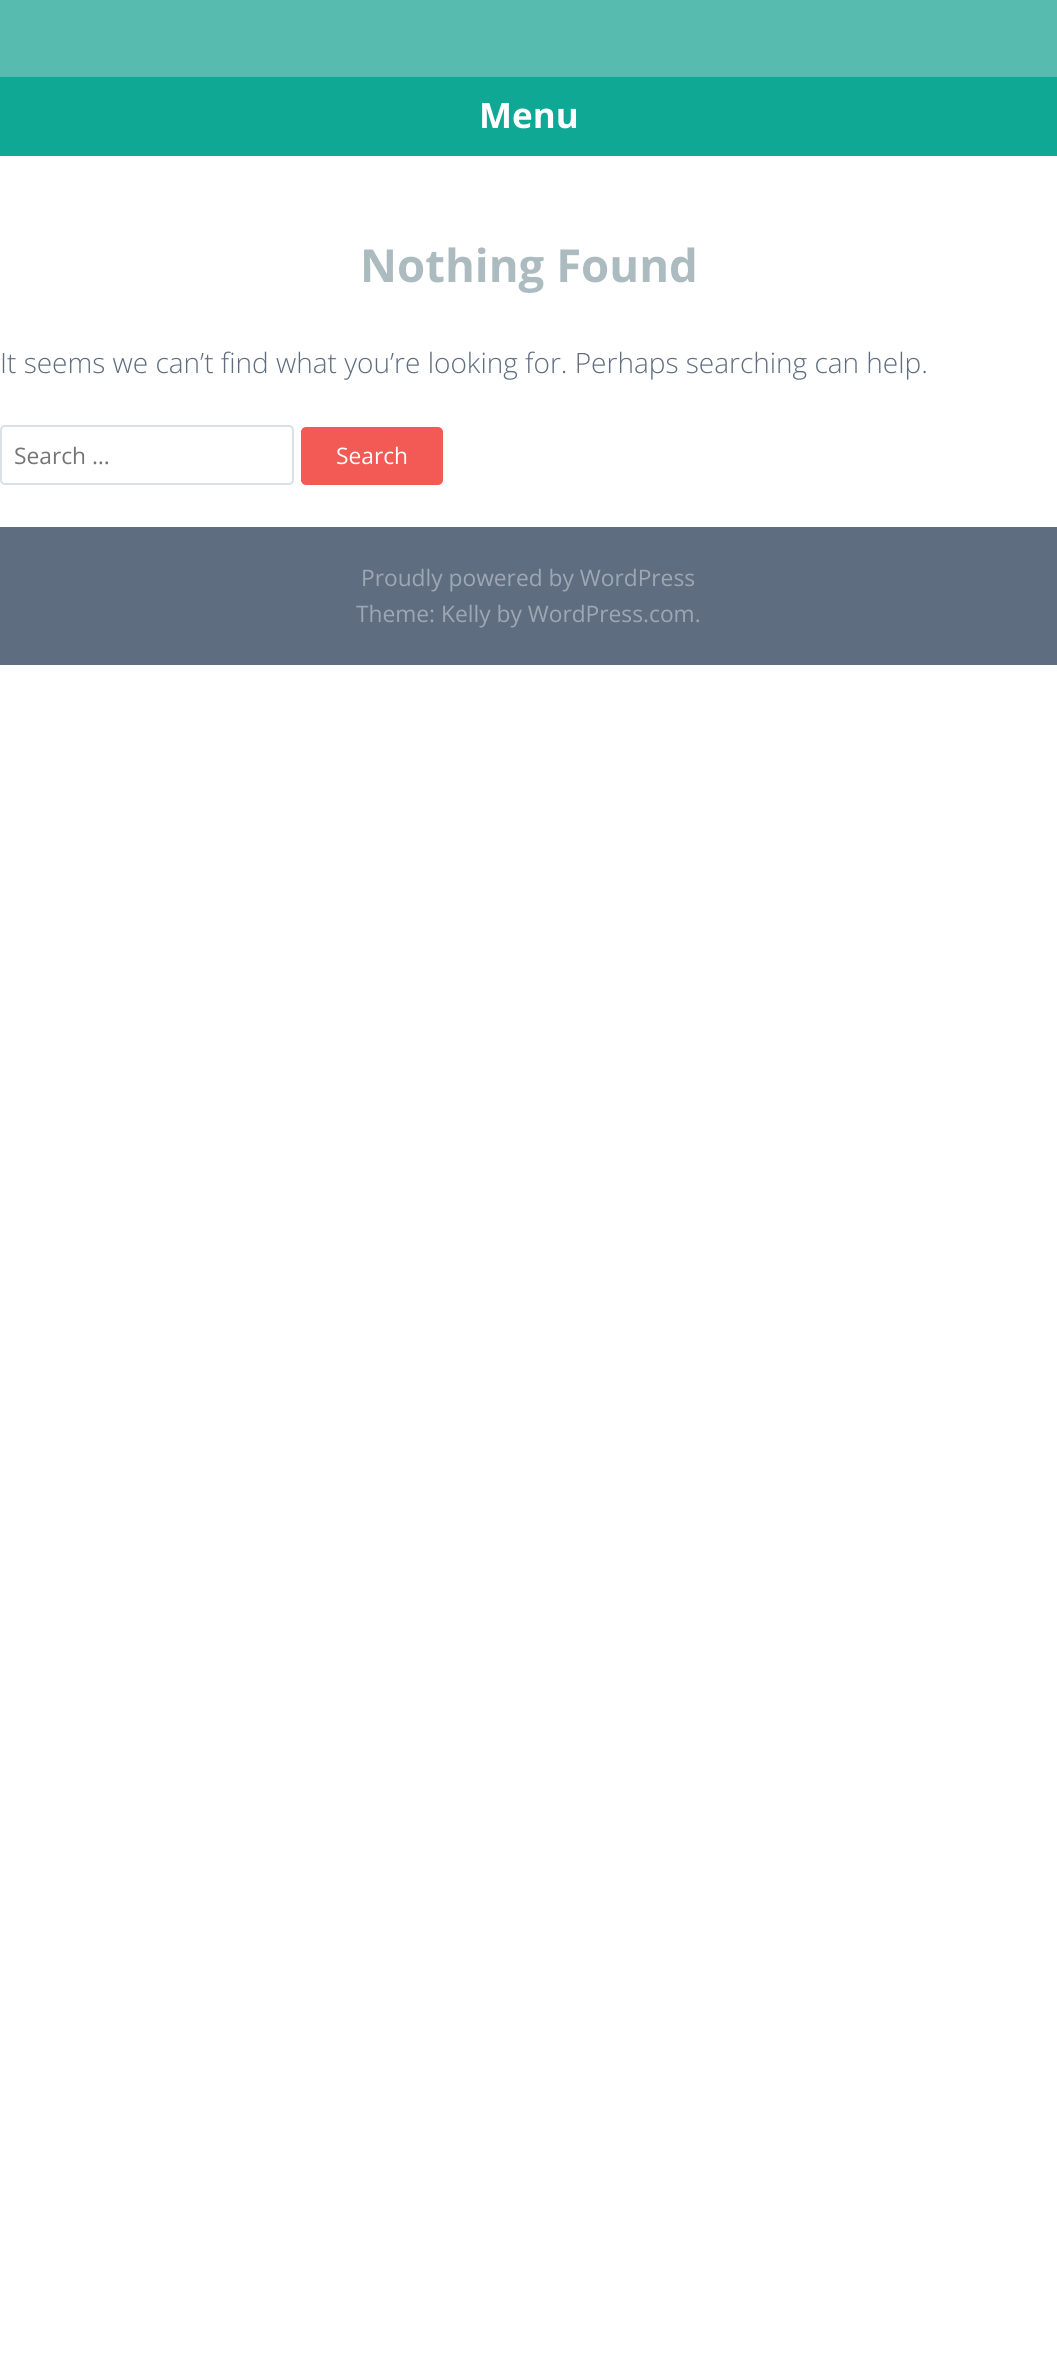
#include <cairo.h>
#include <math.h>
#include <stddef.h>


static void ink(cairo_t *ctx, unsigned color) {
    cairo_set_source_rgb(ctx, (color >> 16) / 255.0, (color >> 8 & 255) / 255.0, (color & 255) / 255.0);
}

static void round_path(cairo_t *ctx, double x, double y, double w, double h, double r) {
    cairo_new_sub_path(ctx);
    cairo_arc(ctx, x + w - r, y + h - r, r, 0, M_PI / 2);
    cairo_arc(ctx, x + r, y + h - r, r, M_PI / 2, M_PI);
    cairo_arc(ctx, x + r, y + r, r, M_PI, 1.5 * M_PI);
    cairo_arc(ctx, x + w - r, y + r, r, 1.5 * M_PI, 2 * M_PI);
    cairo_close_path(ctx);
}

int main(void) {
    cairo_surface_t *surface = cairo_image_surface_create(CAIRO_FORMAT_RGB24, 1057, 2361);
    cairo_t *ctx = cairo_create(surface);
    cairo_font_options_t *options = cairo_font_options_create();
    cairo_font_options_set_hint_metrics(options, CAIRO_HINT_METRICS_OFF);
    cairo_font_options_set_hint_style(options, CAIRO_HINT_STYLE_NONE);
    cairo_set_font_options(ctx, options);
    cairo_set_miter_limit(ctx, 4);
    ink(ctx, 0xFFFFFF);
    cairo_paint(ctx);
    ink(ctx, 0x57BCAF);
    cairo_rectangle(ctx, 0, 0, 1057, 77);
    cairo_fill(ctx);
    ink(ctx, 0x0FA895);
    cairo_rectangle(ctx, 0, 77, 1057, 79);
    cairo_fill(ctx);
    cairo_select_font_face(ctx, "Open Sans", CAIRO_FONT_SLANT_NORMAL, CAIRO_FONT_WEIGHT_BOLD);
    cairo_set_font_size(ctx, 35);
    ink(ctx, 0xFFFFFF);
    cairo_move_to(ctx, 479, 128);
    cairo_show_text(ctx, "Menu");
    cairo_set_font_size(ctx, 45.5);
    ink(ctx, 0xABBBC0);
    cairo_move_to(ctx, 360, 282);
    cairo_show_text(ctx, "Nothing Found");
    cairo_select_font_face(ctx, "Open Sans Light", CAIRO_FONT_SLANT_NORMAL, CAIRO_FONT_WEIGHT_NORMAL);
    cairo_set_font_size(ctx, 28);
    ink(ctx, 0x5F6D80);
    cairo_move_to(ctx, 0, 373);
    cairo_show_text(ctx, "It seems we can’t find what you’re looking for. Perhaps searching can help.");
    round_path(ctx, 1, 426, 292, 58, 4);
    ink(ctx, 0xDAE0E8);
    cairo_stroke(ctx);
    cairo_select_font_face(ctx, "Open Sans", CAIRO_FONT_SLANT_NORMAL, CAIRO_FONT_WEIGHT_NORMAL);
    cairo_set_font_size(ctx, 22.75);
    ink(ctx, 0x757575);
    cairo_move_to(ctx, 14, 464);
    cairo_show_text(ctx, "Search …");
    ink(ctx, 0xF35955);
    round_path(ctx, 301, 427, 142, 58, 5);
    cairo_fill(ctx);
    ink(ctx, 0xFFFFFF);
    cairo_move_to(ctx, 336, 464);
    cairo_show_text(ctx, "Search");
    ink(ctx, 0x5F6D80);
    cairo_rectangle(ctx, 0, 527, 1057, 138);
    cairo_fill(ctx);
    ink(ctx, 0x9DA7B4);
    cairo_move_to(ctx, 361, 586);
    cairo_show_text(ctx, "Proudly powered by WordPress");
    cairo_move_to(ctx, 356, 622);
    cairo_show_text(ctx, "Theme: Kelly by WordPress.com.");
    cairo_surface_write_to_png(surface, "image.png");
    cairo_font_options_destroy(options);
    cairo_destroy(ctx);
    cairo_surface_destroy(surface);
    return 0;
}
